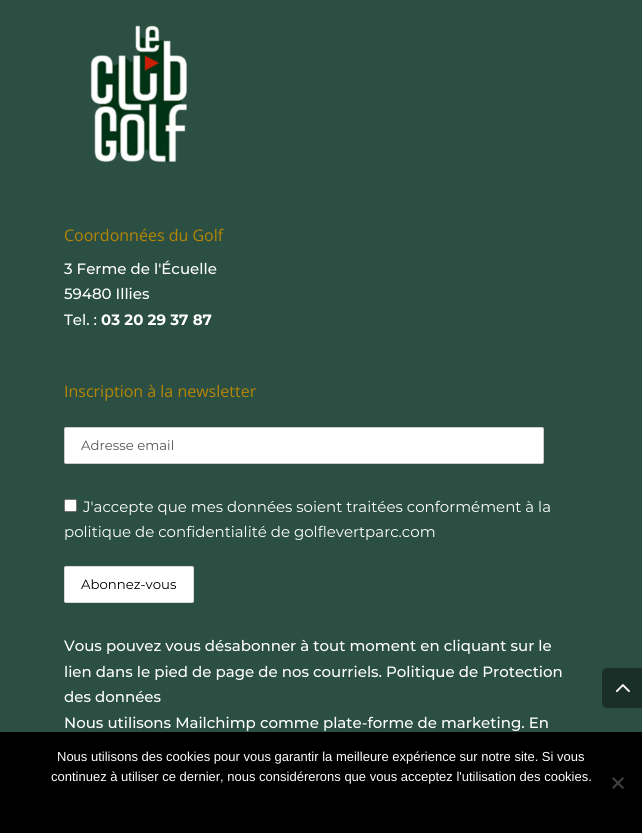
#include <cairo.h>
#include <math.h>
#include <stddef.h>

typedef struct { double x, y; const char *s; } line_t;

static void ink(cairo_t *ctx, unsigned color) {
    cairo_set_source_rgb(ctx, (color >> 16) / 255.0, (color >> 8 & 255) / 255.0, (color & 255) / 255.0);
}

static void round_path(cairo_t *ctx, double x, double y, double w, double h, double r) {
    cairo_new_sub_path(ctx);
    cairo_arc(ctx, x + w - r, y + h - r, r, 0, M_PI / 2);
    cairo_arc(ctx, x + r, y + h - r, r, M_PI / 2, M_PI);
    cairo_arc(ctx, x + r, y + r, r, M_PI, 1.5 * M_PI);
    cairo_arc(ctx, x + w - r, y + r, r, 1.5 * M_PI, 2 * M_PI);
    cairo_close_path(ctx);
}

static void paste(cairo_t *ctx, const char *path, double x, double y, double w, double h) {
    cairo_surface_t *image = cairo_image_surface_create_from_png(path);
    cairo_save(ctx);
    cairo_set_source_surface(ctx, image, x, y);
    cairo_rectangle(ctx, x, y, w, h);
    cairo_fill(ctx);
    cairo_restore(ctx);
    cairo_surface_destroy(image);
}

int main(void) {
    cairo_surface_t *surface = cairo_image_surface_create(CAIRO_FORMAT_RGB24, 642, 833);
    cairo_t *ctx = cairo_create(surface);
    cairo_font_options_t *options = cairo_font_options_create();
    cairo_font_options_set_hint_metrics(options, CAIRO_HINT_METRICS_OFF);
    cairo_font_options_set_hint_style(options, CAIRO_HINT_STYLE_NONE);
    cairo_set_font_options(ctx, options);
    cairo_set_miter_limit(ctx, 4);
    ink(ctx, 0x2B4F43);
    cairo_paint(ctx);
    paste(ctx, "media/1.png", 90, 25, 97, 138);
    cairo_select_font_face(ctx, "Open Sans", CAIRO_FONT_SLANT_NORMAL, CAIRO_FONT_WEIGHT_NORMAL);
    cairo_set_font_size(ctx, 16);
    ink(ctx, 0xB58504);
    cairo_move_to(ctx, 64, 241);
    cairo_show_text(ctx, "Coordonnées du Golf");
    cairo_select_font_face(ctx, "Montserrat Medium", CAIRO_FONT_SLANT_NORMAL, CAIRO_FONT_WEIGHT_NORMAL);
    cairo_set_font_size(ctx, 15);
    ink(ctx, 0xFFFFFF);
    {
        static const line_t items[] = {
            {64, 274, "3 Ferme de l'Écuelle"},
            {64, 299, "59480 Illies"},
            {64, 325, "Tel. :"},
        };
        for (size_t i = 0; i < sizeof items / sizeof *items; i++) {
            cairo_move_to(ctx, items[i].x, items[i].y);
            cairo_show_text(ctx, items[i].s);
        }
    }
    cairo_select_font_face(ctx, "Montserrat", CAIRO_FONT_SLANT_NORMAL, CAIRO_FONT_WEIGHT_BOLD);
    cairo_move_to(ctx, 101, 325);
    cairo_show_text(ctx, "03 20 29 37 87");
    cairo_select_font_face(ctx, "Open Sans", CAIRO_FONT_SLANT_NORMAL, CAIRO_FONT_WEIGHT_NORMAL);
    cairo_set_font_size(ctx, 16);
    ink(ctx, 0xB58504);
    cairo_move_to(ctx, 64, 397);
    cairo_show_text(ctx, "Inscription à la newsletter");
    ink(ctx, 0xFFFFFF);
    round_path(ctx, 64.5, 427.5, 479, 36, 1.5);
    cairo_fill_preserve(ctx);
    ink(ctx, 0xCCCCCC);
    cairo_set_line_width(ctx, 1);
    cairo_stroke(ctx);
    cairo_select_font_face(ctx, "Montserrat", CAIRO_FONT_SLANT_NORMAL, CAIRO_FONT_WEIGHT_NORMAL);
    cairo_set_font_size(ctx, 13.25);
    ink(ctx, 0x555555);
    cairo_move_to(ctx, 81, 450);
    cairo_show_text(ctx, "Adresse email");
    ink(ctx, 0xFFFFFF);
    round_path(ctx, 64.5, 499.5, 12, 12, 1.5);
    cairo_fill_preserve(ctx);
    ink(ctx, 0x767676);
    cairo_stroke(ctx);
    cairo_set_font_size(ctx, 15);
    ink(ctx, 0xFFFFFF);
    cairo_move_to(ctx, 83, 512);
    cairo_show_text(ctx, "J'accepte que mes données soient traitées conformément à la");
    cairo_move_to(ctx, 64, 537);
    cairo_show_text(ctx, "politique de confidentialité de golflevertparc.com");
    round_path(ctx, 64.5, 566.5, 129, 36, 1.5);
    cairo_fill_preserve(ctx);
    ink(ctx, 0xD9D9D9);
    cairo_stroke(ctx);
    cairo_set_font_size(ctx, 13.25);
    ink(ctx, 0x000000);
    cairo_move_to(ctx, 81, 589);
    cairo_show_text(ctx, "Abonnez-vous");
    cairo_select_font_face(ctx, "Montserrat Medium", CAIRO_FONT_SLANT_NORMAL, CAIRO_FONT_WEIGHT_NORMAL);
    cairo_set_font_size(ctx, 15);
    ink(ctx, 0xFFFFFF);
    {
        static const line_t items[] = {
            {64, 651, "Vous pouvez vous désabonner à tout moment en cliquant sur le"},
            {64, 677, "lien dans le pied de page de nos courriels. Politique de Protection"},
            {64, 702, "des données"},
            {64, 728, "Nous utilisons Mailchimp comme plate-forme de marketing. En"},
        };
        for (size_t i = 0; i < sizeof items / sizeof *items; i++) {
            cairo_move_to(ctx, items[i].x, items[i].y);
            cairo_show_text(ctx, items[i].s);
        }
    }
    ink(ctx, 0x1A2F28);
    cairo_new_path(ctx);
    cairo_move_to(ctx, 607, 668);
    cairo_line_to(ctx, 642, 668);
    cairo_line_to(ctx, 642, 708);
    cairo_line_to(ctx, 607, 708);
    cairo_curve_to(ctx, 604, 708, 602, 706, 602, 703);
    cairo_line_to(ctx, 602, 673);
    cairo_curve_to(ctx, 602, 670, 604, 668, 607, 668);
    cairo_close_path(ctx);
    cairo_fill(ctx);
    paste(ctx, "media/2.png", 615, 684, 15, 9);
    ink(ctx, 0x000000);
    cairo_rectangle(ctx, 0, 732, 642, 101);
    cairo_fill(ctx);
    cairo_select_font_face(ctx, "Liberation Sans", CAIRO_FONT_SLANT_NORMAL, CAIRO_FONT_WEIGHT_NORMAL);
    cairo_set_font_size(ctx, 13);
    ink(ctx, 0xFFFFFF);
    cairo_move_to(ctx, 57, 761);
    cairo_show_text(ctx, "Nous utilisons des cookies pour vous garantir la meilleure expérience sur notre site. Si vous");
    cairo_move_to(ctx, 51, 781);
    cairo_show_text(ctx, "continuez à utiliser ce dernier, nous considérerons que vous acceptez l'utilisation des cookies.");
    ink(ctx, 0x404040);
    cairo_new_path(ctx);
    cairo_move_to(ctx, 622.5, 777);
    cairo_line_to(ctx, 624, 778.5);
    cairo_line_to(ctx, 613.5, 789);
    cairo_line_to(ctx, 612, 787.5);
    cairo_close_path(ctx);
    cairo_fill(ctx);
    cairo_new_path(ctx);
    cairo_move_to(ctx, 612, 778.5);
    cairo_line_to(ctx, 613.5, 777);
    cairo_line_to(ctx, 624, 787.5);
    cairo_line_to(ctx, 622.5, 789);
    cairo_close_path(ctx);
    cairo_fill(ctx);
    cairo_surface_write_to_png(surface, "image.png");
    cairo_font_options_destroy(options);
    cairo_destroy(ctx);
    cairo_surface_destroy(surface);
    return 0;
}
